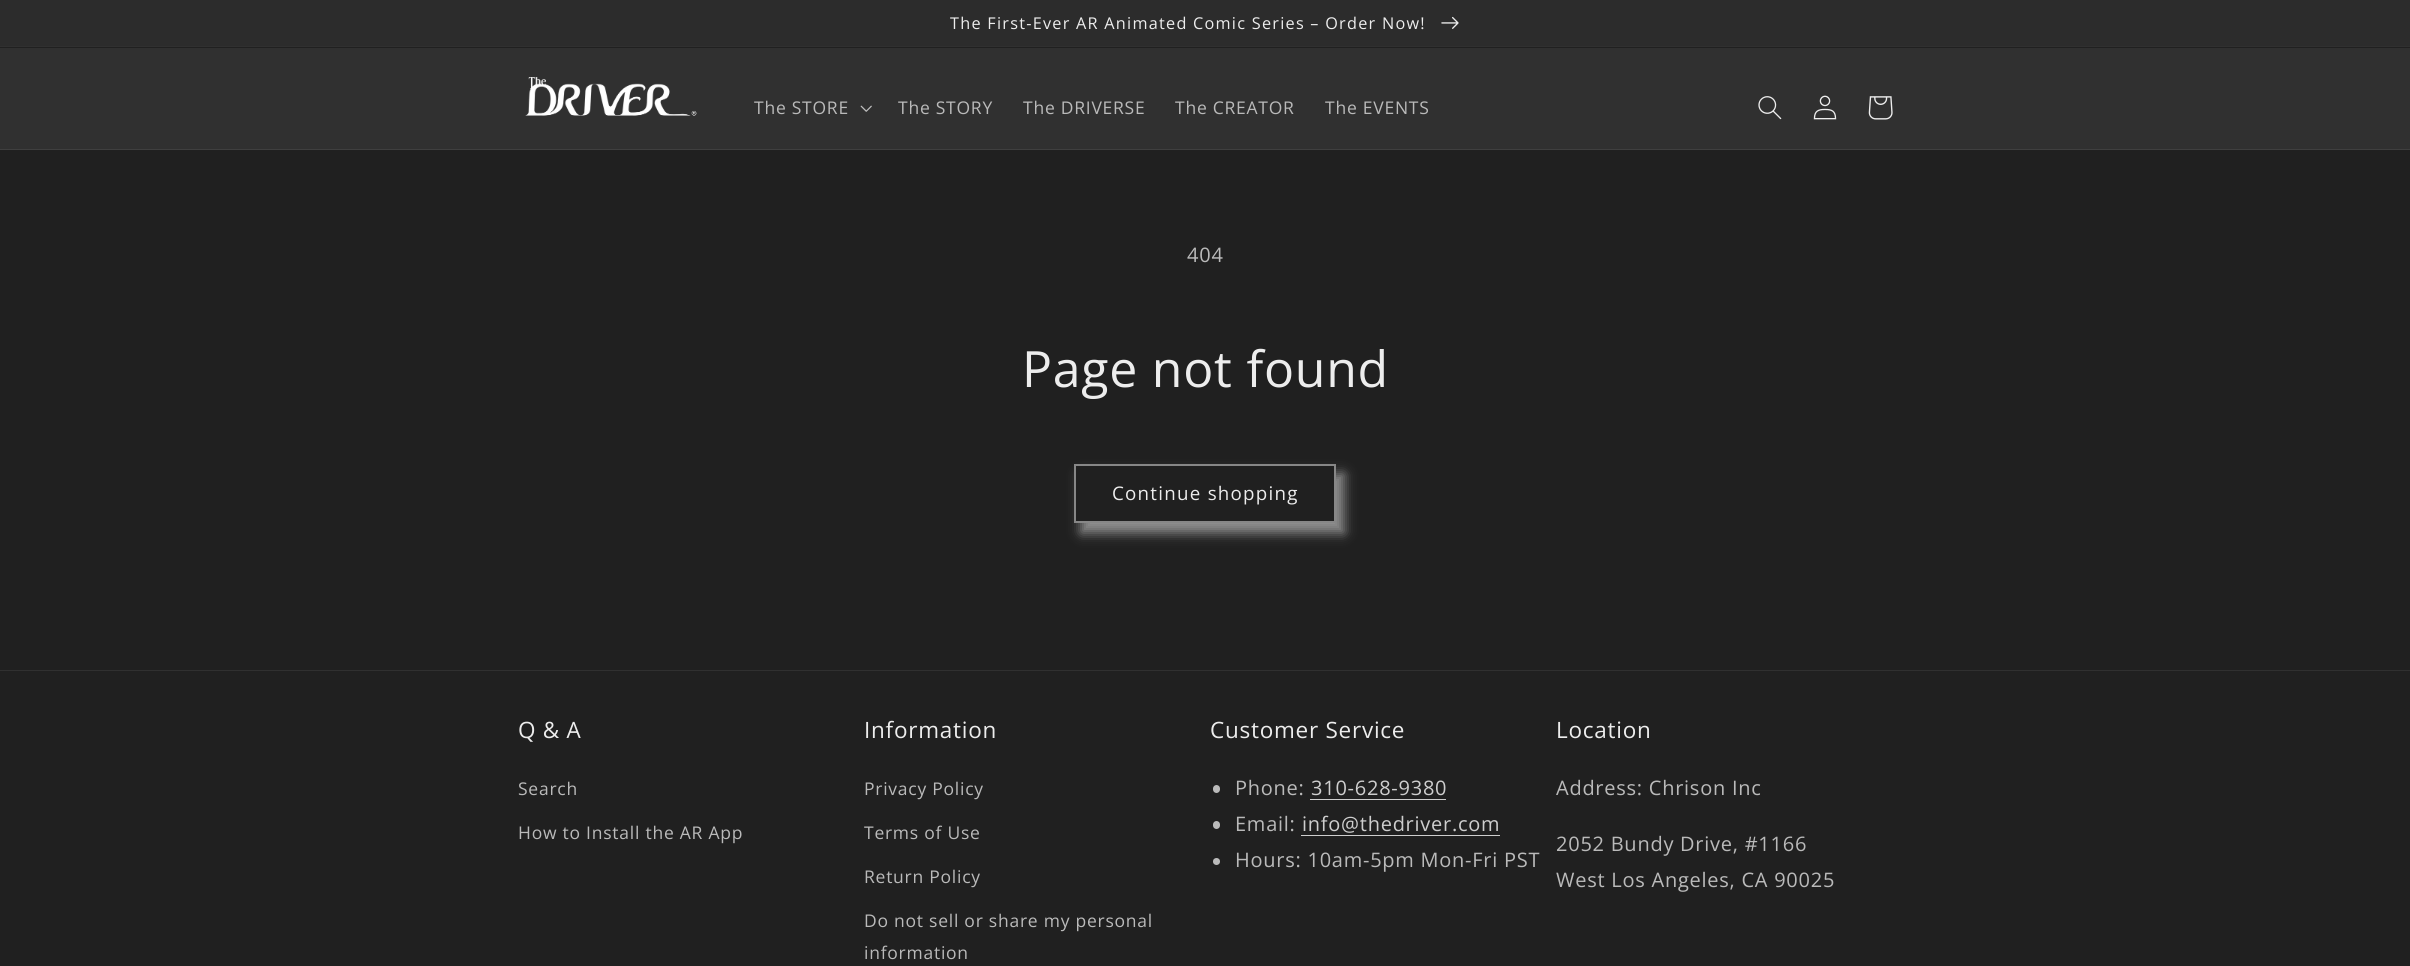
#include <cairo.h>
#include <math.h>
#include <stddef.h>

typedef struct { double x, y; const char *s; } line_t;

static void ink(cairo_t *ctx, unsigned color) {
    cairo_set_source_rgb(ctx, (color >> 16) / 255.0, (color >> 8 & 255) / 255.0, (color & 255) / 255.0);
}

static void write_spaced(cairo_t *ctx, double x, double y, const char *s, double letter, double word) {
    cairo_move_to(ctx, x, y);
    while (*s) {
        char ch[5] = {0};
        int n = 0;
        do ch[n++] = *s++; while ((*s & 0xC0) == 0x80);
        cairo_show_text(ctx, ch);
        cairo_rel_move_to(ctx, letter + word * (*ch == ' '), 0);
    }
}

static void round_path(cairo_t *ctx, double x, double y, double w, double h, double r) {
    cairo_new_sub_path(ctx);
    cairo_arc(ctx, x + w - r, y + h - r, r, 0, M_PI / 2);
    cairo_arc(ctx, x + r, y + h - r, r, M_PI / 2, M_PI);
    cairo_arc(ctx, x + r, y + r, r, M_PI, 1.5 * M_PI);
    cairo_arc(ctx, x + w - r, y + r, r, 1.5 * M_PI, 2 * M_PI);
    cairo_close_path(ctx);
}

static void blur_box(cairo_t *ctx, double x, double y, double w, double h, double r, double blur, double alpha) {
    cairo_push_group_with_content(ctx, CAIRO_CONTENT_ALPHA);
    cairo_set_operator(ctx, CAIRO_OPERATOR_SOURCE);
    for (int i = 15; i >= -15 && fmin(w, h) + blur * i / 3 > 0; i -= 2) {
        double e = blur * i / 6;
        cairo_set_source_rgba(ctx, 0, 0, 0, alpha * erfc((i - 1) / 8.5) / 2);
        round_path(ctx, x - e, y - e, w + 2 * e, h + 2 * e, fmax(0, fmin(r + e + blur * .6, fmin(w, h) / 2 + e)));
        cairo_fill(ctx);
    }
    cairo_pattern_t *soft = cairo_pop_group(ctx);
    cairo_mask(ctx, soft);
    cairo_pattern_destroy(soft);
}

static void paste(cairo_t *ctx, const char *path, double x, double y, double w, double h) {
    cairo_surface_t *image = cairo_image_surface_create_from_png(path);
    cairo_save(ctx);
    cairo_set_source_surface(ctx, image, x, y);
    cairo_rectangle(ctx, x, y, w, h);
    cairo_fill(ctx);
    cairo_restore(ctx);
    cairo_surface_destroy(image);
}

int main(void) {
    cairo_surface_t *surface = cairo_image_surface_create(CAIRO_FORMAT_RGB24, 2410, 966);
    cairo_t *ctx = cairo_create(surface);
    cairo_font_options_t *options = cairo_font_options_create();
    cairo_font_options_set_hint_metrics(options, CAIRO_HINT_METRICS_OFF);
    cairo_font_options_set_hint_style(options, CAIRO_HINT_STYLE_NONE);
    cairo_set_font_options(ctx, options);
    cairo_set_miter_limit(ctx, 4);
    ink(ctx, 0x202020);
    cairo_paint(ctx);
    ink(ctx, 0x303030);
    cairo_rectangle(ctx, 0, 46, 2410, 1);
    cairo_fill(ctx);
    ink(ctx, 0x2C2C2C);
    cairo_rectangle(ctx, 0, 0, 2410, 46);
    cairo_fill(ctx);
    cairo_select_font_face(ctx, "Open Sans", CAIRO_FONT_SLANT_NORMAL, CAIRO_FONT_WEIGHT_NORMAL);
    cairo_set_font_size(ctx, 16.25);
    ink(ctx, 0xEDEDED);
    write_spaced(ctx, 950, 29, "The First-Ever AR Animated Comic Series – Order Now!", 1.25, 0);
    paste(ctx, "media/1.png", 1441, 16, 18, 13);
    ink(ctx, 0x303030);
    cairo_rectangle(ctx, 0, 48, 2410, 101);
    cairo_fill(ctx);
    ink(ctx, 0x3F3F3F);
    cairo_rectangle(ctx, 0, 149, 2410, 1);
    cairo_fill(ctx);
    paste(ctx, "media/2.png", 525, 77, 172, 39);
    cairo_set_font_size(ctx, 17.5);
    ink(ctx, 0xBABABA);
    write_spaced(ctx, 754, 114, "The STORE", 0.75, 0);
    paste(ctx, "media/3.png", 860, 105, 12, 7);
    {
        static const line_t items[] = {
            {898, 114, "The STORY"},
            {1023, 114, "The DRIVERSE"},
            {1175, 114, "The CREATOR"},
            {1325, 114, "The EVENTS"},
        };
        for (size_t i = 0; i < sizeof items / sizeof *items; i++) {
            write_spaced(ctx, items[i].x, items[i].y, items[i].s, 0.75, 0);
        }
    }
    paste(ctx, "media/4.png", 1758, 96, 24, 24);
    paste(ctx, "media/5.png", 1813, 95, 24, 25);
    paste(ctx, "media/6.png", 1868, 96, 25, 24);
    cairo_set_font_size(ctx, 20);
    write_spaced(ctx, 1187, 262, "404", 0.75, 0);
    cairo_set_font_size(ctx, 50);
    ink(ctx, 0xEDEDED);
    write_spaced(ctx, 1022, 387, "Page not found", 0.75, 0);
    ink(ctx, 0xEDEDED);
    blur_box(ctx, 1081, 474, 263, 59, 0, 6, 0.55);
    ink(ctx, 0x202020);
    cairo_rectangle(ctx, 1076, 466, 258, 55);
    cairo_fill(ctx);
    cairo_rectangle(ctx, 1075, 465, 260, 57);
    ink(ctx, 0x878787);
    cairo_stroke(ctx);
    cairo_set_font_size(ctx, 18.75);
    ink(ctx, 0xEDEDED);
    write_spaced(ctx, 1112, 500, "Continue shopping", 1.25, 0);
    ink(ctx, 0x303030);
    cairo_rectangle(ctx, 0, 670, 2410, 1);
    cairo_fill(ctx);
    cairo_set_font_size(ctx, 22.5);
    ink(ctx, 0xEDEDED);
    write_spaced(ctx, 518, 738, "Q & A", 0.75, 0);
    cairo_set_font_size(ctx, 17.5);
    ink(ctx, 0xBABABA);
    write_spaced(ctx, 518, 795, "Search", 0.75, 0);
    write_spaced(ctx, 518, 839, "How to Install the AR App", 0.75, 0);
    cairo_set_font_size(ctx, 22.5);
    ink(ctx, 0xEDEDED);
    write_spaced(ctx, 864, 738, "Information", 0.75, 0);
    cairo_set_font_size(ctx, 17.5);
    ink(ctx, 0xBABABA);
    {
        static const line_t items[] = {
            {864, 795, "Privacy Policy"},
            {864, 839, "Terms of Use"},
            {864, 883, "Return Policy"},
            {864, 927, "Do not sell or share my personal"},
            {864, 959, "information"},
        };
        for (size_t i = 0; i < sizeof items / sizeof *items; i++) {
            write_spaced(ctx, items[i].x, items[i].y, items[i].s, 0.75, 0);
        }
    }
    cairo_set_font_size(ctx, 22.5);
    ink(ctx, 0xEDEDED);
    write_spaced(ctx, 1210, 738, "Customer Service", 0.75, 0);
    ink(ctx, 0xBABABA);
    round_path(ctx, 1213, 785, 7, 8, 3.5);
    cairo_fill(ctx);
    cairo_set_font_size(ctx, 20);
    write_spaced(ctx, 1235, 795, "Phone:", 0.75, 0);
    ink(ctx, 0xCECECE);
    write_spaced(ctx, 1311, 795, "310-628-9380", 0.75, 0);
    cairo_rectangle(ctx, 1310, 799, 136, 1);
    cairo_fill(ctx);
    ink(ctx, 0xBABABA);
    round_path(ctx, 1213, 821, 7, 8, 3.5);
    cairo_fill(ctx);
    write_spaced(ctx, 1235, 831, "Email:", 0.75, 0);
    ink(ctx, 0xCECECE);
    write_spaced(ctx, 1302, 831, "info@thedriver.com", 0.75, 0);
    cairo_rectangle(ctx, 1301, 835, 199, 1);
    cairo_fill(ctx);
    ink(ctx, 0xBABABA);
    cairo_arc(ctx, 1216.5, 861.5, 3.5, 0, 2 * M_PI);
    cairo_fill(ctx);
    write_spaced(ctx, 1235, 867, "Hours: 10am-5pm Mon-Fri PST", 0.75, 0);
    cairo_set_font_size(ctx, 22.5);
    ink(ctx, 0xEDEDED);
    write_spaced(ctx, 1556, 738, "Location", 0.75, 0);
    cairo_set_font_size(ctx, 20);
    ink(ctx, 0xBABABA);
    {
        static const line_t items[] = {
            {1556, 795, "Address: Chrison Inc"},
            {1556, 851, "2052 Bundy Drive, #1166"},
            {1556, 887, "West Los Angeles, CA 90025"},
        };
        for (size_t i = 0; i < sizeof items / sizeof *items; i++) {
            write_spaced(ctx, items[i].x, items[i].y, items[i].s, 0.75, 0);
        }
    }
    cairo_surface_write_to_png(surface, "image.png");
    cairo_font_options_destroy(options);
    cairo_destroy(ctx);
    cairo_surface_destroy(surface);
    return 0;
}
